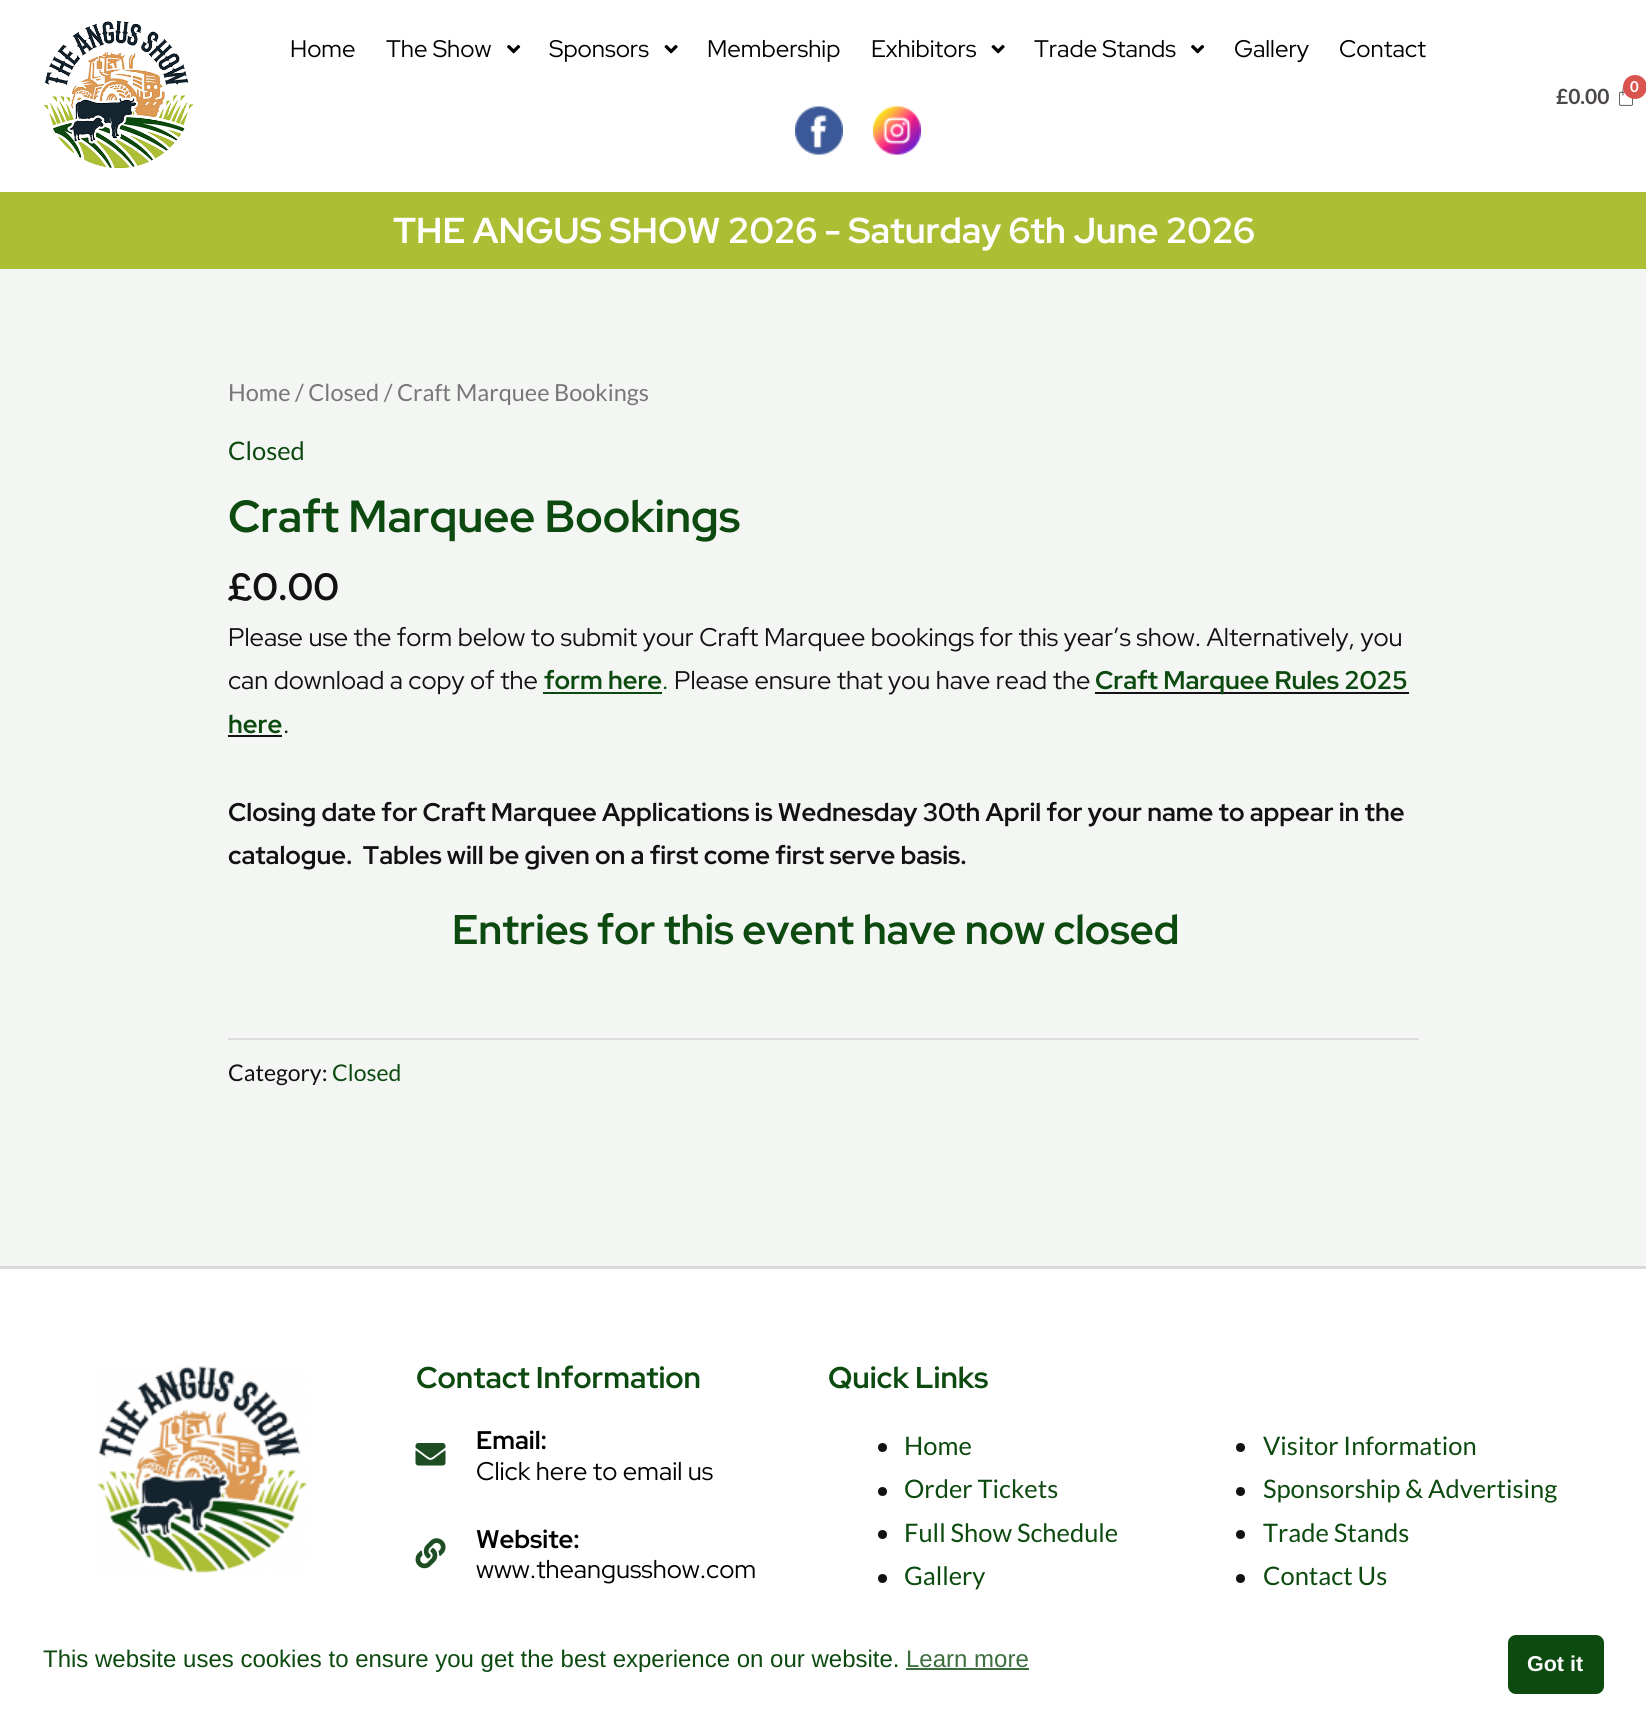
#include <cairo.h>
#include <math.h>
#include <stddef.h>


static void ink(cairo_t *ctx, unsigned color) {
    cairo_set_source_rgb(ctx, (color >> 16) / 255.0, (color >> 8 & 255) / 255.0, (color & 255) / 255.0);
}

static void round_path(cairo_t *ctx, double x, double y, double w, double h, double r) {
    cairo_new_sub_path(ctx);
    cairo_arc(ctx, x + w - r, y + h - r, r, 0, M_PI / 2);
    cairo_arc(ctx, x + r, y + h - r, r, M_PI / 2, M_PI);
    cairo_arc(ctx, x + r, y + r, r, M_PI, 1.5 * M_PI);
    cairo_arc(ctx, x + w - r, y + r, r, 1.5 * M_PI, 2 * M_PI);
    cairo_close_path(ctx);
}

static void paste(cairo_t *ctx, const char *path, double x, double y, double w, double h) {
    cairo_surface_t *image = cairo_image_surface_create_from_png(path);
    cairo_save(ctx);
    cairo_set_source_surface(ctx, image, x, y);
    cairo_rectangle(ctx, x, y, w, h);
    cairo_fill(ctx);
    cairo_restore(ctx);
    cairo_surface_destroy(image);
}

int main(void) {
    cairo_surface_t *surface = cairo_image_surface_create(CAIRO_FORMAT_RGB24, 1646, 1717);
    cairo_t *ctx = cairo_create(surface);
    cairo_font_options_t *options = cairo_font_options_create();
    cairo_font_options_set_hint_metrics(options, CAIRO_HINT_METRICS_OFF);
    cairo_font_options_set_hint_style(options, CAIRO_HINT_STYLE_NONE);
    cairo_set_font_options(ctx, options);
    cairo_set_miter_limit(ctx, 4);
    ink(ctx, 0xF4F6F4);
    cairo_paint(ctx);
    ink(ctx, 0xFFFFFF);
    cairo_rectangle(ctx, 0, 0, 1646, 192);
    cairo_fill(ctx);
    paste(ctx, "media/1.png", 44, 20, 150, 148);
    cairo_select_font_face(ctx, "Red Hat Display", CAIRO_FONT_SLANT_NORMAL, CAIRO_FONT_WEIGHT_NORMAL);
    cairo_set_font_size(ctx, 24);
    ink(ctx, 0x000000);
    cairo_move_to(ctx, 290, 57);
    cairo_show_text(ctx, "Home");
    cairo_move_to(ctx, 386, 57);
    cairo_show_text(ctx, "The Show");
    paste(ctx, "media/2.png", 507, 44, 14, 10);
    cairo_move_to(ctx, 549, 57);
    cairo_show_text(ctx, "Sponsors");
    paste(ctx, "media/3.png", 664, 44, 14, 10);
    cairo_move_to(ctx, 707, 57);
    cairo_show_text(ctx, "Membership");
    cairo_move_to(ctx, 871, 57);
    cairo_show_text(ctx, "Exhibitors");
    paste(ctx, "media/3.png", 991, 44, 14, 10);
    cairo_move_to(ctx, 1034, 57);
    cairo_show_text(ctx, "Trade Stands");
    paste(ctx, "media/2.png", 1191, 44, 14, 10);
    cairo_move_to(ctx, 1234, 57);
    cairo_show_text(ctx, "Gallery");
    cairo_move_to(ctx, 1339, 57);
    cairo_show_text(ctx, "Contact");
    paste(ctx, "media/4.png", 795, 106, 48, 49);
    paste(ctx, "media/5.png", 873, 106, 48, 49);
    cairo_select_font_face(ctx, "Lato", CAIRO_FONT_SLANT_NORMAL, CAIRO_FONT_WEIGHT_BOLD);
    cairo_set_font_size(ctx, 21);
    ink(ctx, 0x4D4848);
    cairo_move_to(ctx, 1556, 104);
    cairo_show_text(ctx, "£0.00");
    paste(ctx, "media/6.png", 1619, 87, 14, 19);
    ink(ctx, 0xD9534F);
    cairo_arc(ctx, 1635, 87, 12, 0, 2 * M_PI);
    cairo_fill(ctx);
    cairo_set_font_size(ctx, 15);
    ink(ctx, 0xFFFFFF);
    cairo_move_to(ctx, 1630, 92);
    cairo_show_text(ctx, "0");
    ink(ctx, 0xABBE34);
    cairo_rectangle(ctx, 0, 192, 1646, 77);
    cairo_fill(ctx);
    cairo_select_font_face(ctx, "Red Hat Display", CAIRO_FONT_SLANT_NORMAL, CAIRO_FONT_WEIGHT_BOLD);
    cairo_set_font_size(ctx, 36);
    ink(ctx, 0xFFFFFF);
    cairo_move_to(ctx, 393, 243);
    cairo_show_text(ctx, "THE ANGUS SHOW 2026 - Saturday 6th June 2026");
    cairo_select_font_face(ctx, "Lato", CAIRO_FONT_SLANT_NORMAL, CAIRO_FONT_WEIGHT_NORMAL);
    cairo_set_font_size(ctx, 23.5);
    ink(ctx, 0x777777);
    cairo_move_to(ctx, 228, 401);
    cairo_show_text(ctx, "Home / Closed / Craft Marquee Bookings");
    cairo_set_font_size(ctx, 25.5);
    ink(ctx, 0x0C4A0F);
    cairo_move_to(ctx, 228, 460);
    cairo_show_text(ctx, "Closed");
    cairo_select_font_face(ctx, "Red Hat Display", CAIRO_FONT_SLANT_NORMAL, CAIRO_FONT_WEIGHT_BOLD);
    cairo_set_font_size(ctx, 45);
    cairo_move_to(ctx, 228, 532);
    cairo_show_text(ctx, "Craft Marquee Bookings");
    cairo_set_font_size(ctx, 38);
    ink(ctx, 0x111211);
    cairo_move_to(ctx, 228, 600);
    cairo_show_text(ctx, "£0.00");
    cairo_select_font_face(ctx, "Red Hat Display", CAIRO_FONT_SLANT_NORMAL, CAIRO_FONT_WEIGHT_NORMAL);
    cairo_set_font_size(ctx, 25.5);
    cairo_move_to(ctx, 228, 646);
    cairo_show_text(ctx, "Please use the form below to submit your Craft Marquee bookings for this year’s show. Alternatively, you");
    cairo_move_to(ctx, 228, 689);
    cairo_show_text(ctx, "can download a copy of the");
    cairo_select_font_face(ctx, "Red Hat Display", CAIRO_FONT_SLANT_NORMAL, CAIRO_FONT_WEIGHT_BOLD);
    ink(ctx, 0x0C4A0F);
    cairo_move_to(ctx, 544, 689);
    cairo_show_text(ctx, "form here");
    cairo_select_font_face(ctx, "Red Hat Display", CAIRO_FONT_SLANT_NORMAL, CAIRO_FONT_WEIGHT_NORMAL);
    cairo_move_to(ctx, 662, 689);
    cairo_show_text(ctx, ".");
    cairo_rectangle(ctx, 543, 692, 119, 2);
    cairo_fill(ctx);
    ink(ctx, 0x111211);
    cairo_move_to(ctx, 674, 689);
    cairo_show_text(ctx, "Please ensure that you have read the");
    cairo_rectangle(ctx, 1095, 692, 314, 2);
    cairo_fill(ctx);
    cairo_select_font_face(ctx, "Red Hat Display", CAIRO_FONT_SLANT_NORMAL, CAIRO_FONT_WEIGHT_BOLD);
    ink(ctx, 0x0C4A0F);
    cairo_move_to(ctx, 1095, 689);
    cairo_show_text(ctx, "Craft Marquee Rules 2025");
    cairo_move_to(ctx, 228, 733);
    cairo_show_text(ctx, "here");
    ink(ctx, 0x111211);
    cairo_rectangle(ctx, 228, 735, 54, 2);
    cairo_fill(ctx);
    cairo_select_font_face(ctx, "Red Hat Display", CAIRO_FONT_SLANT_NORMAL, CAIRO_FONT_WEIGHT_NORMAL);
    cairo_move_to(ctx, 283, 733);
    cairo_show_text(ctx, ".");
    cairo_select_font_face(ctx, "Red Hat Display", CAIRO_FONT_SLANT_NORMAL, CAIRO_FONT_WEIGHT_BOLD);
    cairo_move_to(ctx, 228, 821);
    cairo_show_text(ctx, "Closing date for Craft Marquee Applications is Wednesday 30th April for your name to appear in the");
    cairo_move_to(ctx, 228, 864);
    cairo_show_text(ctx, "catalogue.  Tables will be given on a first come first serve basis.");
    cairo_set_font_size(ctx, 41.4);
    ink(ctx, 0x0C4A0F);
    cairo_move_to(ctx, 452, 944);
    cairo_show_text(ctx, "Entries for this event have now closed");
    ink(ctx, 0xDDDDDD);
    cairo_rectangle(ctx, 228, 1038, 1191, 2);
    cairo_fill(ctx);
    cairo_select_font_face(ctx, "Lato", CAIRO_FONT_SLANT_NORMAL, CAIRO_FONT_WEIGHT_NORMAL);
    cairo_set_font_size(ctx, 23);
    ink(ctx, 0x111211);
    cairo_move_to(ctx, 228, 1081);
    cairo_show_text(ctx, "Category:");
    ink(ctx, 0x0C4A0F);
    cairo_move_to(ctx, 332, 1081);
    cairo_show_text(ctx, "Closed");
    ink(ctx, 0xFFFFFF);
    cairo_rectangle(ctx, 0, 1269, 1646, 448);
    cairo_fill(ctx);
    ink(ctx, 0xDADADA);
    cairo_rectangle(ctx, 0, 1266, 1646, 3);
    cairo_fill(ctx);
    paste(ctx, "media/7.png", 97, 1366, 211, 207);
    cairo_select_font_face(ctx, "Red Hat Display", CAIRO_FONT_SLANT_NORMAL, CAIRO_FONT_WEIGHT_BOLD);
    cairo_set_font_size(ctx, 30);
    ink(ctx, 0x0C4A0F);
    cairo_move_to(ctx, 416, 1388);
    cairo_show_text(ctx, "Contact Information");
    paste(ctx, "media/8.png", 415, 1443, 31, 23);
    cairo_set_font_size(ctx, 25.5);
    ink(ctx, 0x000000);
    cairo_move_to(ctx, 476, 1449);
    cairo_show_text(ctx, "Email:");
    cairo_select_font_face(ctx, "Red Hat Display", CAIRO_FONT_SLANT_NORMAL, CAIRO_FONT_WEIGHT_NORMAL);
    cairo_move_to(ctx, 476, 1480);
    cairo_show_text(ctx, "Click here to email us");
    paste(ctx, "media/9.png", 415, 1538, 31, 31);
    cairo_select_font_face(ctx, "Red Hat Display", CAIRO_FONT_SLANT_NORMAL, CAIRO_FONT_WEIGHT_BOLD);
    cairo_move_to(ctx, 476, 1548);
    cairo_show_text(ctx, "Website:");
    cairo_select_font_face(ctx, "Red Hat Display", CAIRO_FONT_SLANT_NORMAL, CAIRO_FONT_WEIGHT_NORMAL);
    cairo_move_to(ctx, 476, 1578);
    cairo_show_text(ctx, "www.theangusshow.com");
    cairo_select_font_face(ctx, "Red Hat Display", CAIRO_FONT_SLANT_NORMAL, CAIRO_FONT_WEIGHT_BOLD);
    cairo_set_font_size(ctx, 30);
    ink(ctx, 0x0C4A0F);
    cairo_move_to(ctx, 828, 1388);
    cairo_show_text(ctx, "Quick Links");
    ink(ctx, 0x111211);
    cairo_new_path(ctx);
    cairo_arc(ctx, 882.5, 1447.5, 4.5, 0, 2 * M_PI);
    cairo_fill(ctx);
    cairo_select_font_face(ctx, "Lato", CAIRO_FONT_SLANT_NORMAL, CAIRO_FONT_WEIGHT_NORMAL);
    cairo_set_font_size(ctx, 25.5);
    ink(ctx, 0x0C4A0F);
    cairo_move_to(ctx, 904, 1455);
    cairo_show_text(ctx, "Home");
    ink(ctx, 0x111211);
    cairo_new_path(ctx);
    cairo_arc(ctx, 1240.5, 1447.5, 4.5, 0, 2 * M_PI);
    cairo_fill(ctx);
    ink(ctx, 0x0C4A0F);
    cairo_move_to(ctx, 1263, 1455);
    cairo_show_text(ctx, "Visitor Information");
    ink(ctx, 0x111211);
    cairo_new_path(ctx);
    cairo_arc(ctx, 882.5, 1491.5, 4.5, 0, 2 * M_PI);
    cairo_fill(ctx);
    ink(ctx, 0x0C4A0F);
    cairo_move_to(ctx, 904, 1498);
    cairo_show_text(ctx, "Order Tickets");
    ink(ctx, 0x111211);
    cairo_new_path(ctx);
    cairo_arc(ctx, 1240.5, 1491.5, 4.5, 0, 2 * M_PI);
    cairo_fill(ctx);
    ink(ctx, 0x0C4A0F);
    cairo_move_to(ctx, 1263, 1498);
    cairo_show_text(ctx, "Sponsorship & Advertising");
    ink(ctx, 0x111211);
    cairo_new_path(ctx);
    cairo_arc(ctx, 882.5, 1534.5, 4.5, 0, 2 * M_PI);
    cairo_fill(ctx);
    ink(ctx, 0x0C4A0F);
    cairo_move_to(ctx, 904, 1542);
    cairo_show_text(ctx, "Full Show Schedule");
    ink(ctx, 0x111211);
    cairo_new_path(ctx);
    cairo_arc(ctx, 1240.5, 1534.5, 4.5, 0, 2 * M_PI);
    cairo_fill(ctx);
    ink(ctx, 0x0C4A0F);
    cairo_move_to(ctx, 1263, 1542);
    cairo_show_text(ctx, "Trade Stands");
    ink(ctx, 0x111211);
    cairo_new_path(ctx);
    cairo_arc(ctx, 882.5, 1578.5, 4.5, 0, 2 * M_PI);
    cairo_fill(ctx);
    ink(ctx, 0x0C4A0F);
    cairo_move_to(ctx, 904, 1585);
    cairo_show_text(ctx, "Gallery");
    ink(ctx, 0x111211);
    cairo_new_path(ctx);
    cairo_arc(ctx, 1240.5, 1578.5, 4.5, 0, 2 * M_PI);
    cairo_fill(ctx);
    ink(ctx, 0x0C4A0F);
    cairo_move_to(ctx, 1263, 1585);
    cairo_show_text(ctx, "Contact Us");
    cairo_select_font_face(ctx, "Liberation Sans", CAIRO_FONT_SLANT_NORMAL, CAIRO_FONT_WEIGHT_NORMAL);
    cairo_set_font_size(ctx, 24);
    cairo_move_to(ctx, 43, 1667);
    cairo_show_text(ctx, "This website uses cookies to ensure you get the best experience on our website.");
    ink(ctx, 0x3D6E3F);
    cairo_move_to(ctx, 906, 1667);
    cairo_show_text(ctx, "Learn more");
    cairo_rectangle(ctx, 906, 1668, 123, 2);
    cairo_fill(ctx);
    ink(ctx, 0x0C4A0F);
    round_path(ctx, 1508, 1635, 96, 59, 8);
    cairo_fill(ctx);
    cairo_select_font_face(ctx, "Liberation Sans", CAIRO_FONT_SLANT_NORMAL, CAIRO_FONT_WEIGHT_BOLD);
    cairo_set_font_size(ctx, 21.5);
    ink(ctx, 0xFFFFFF);
    cairo_move_to(ctx, 1527, 1671);
    cairo_show_text(ctx, "Got it");
    cairo_surface_write_to_png(surface, "image.png");
    cairo_font_options_destroy(options);
    cairo_destroy(ctx);
    cairo_surface_destroy(surface);
    return 0;
}
